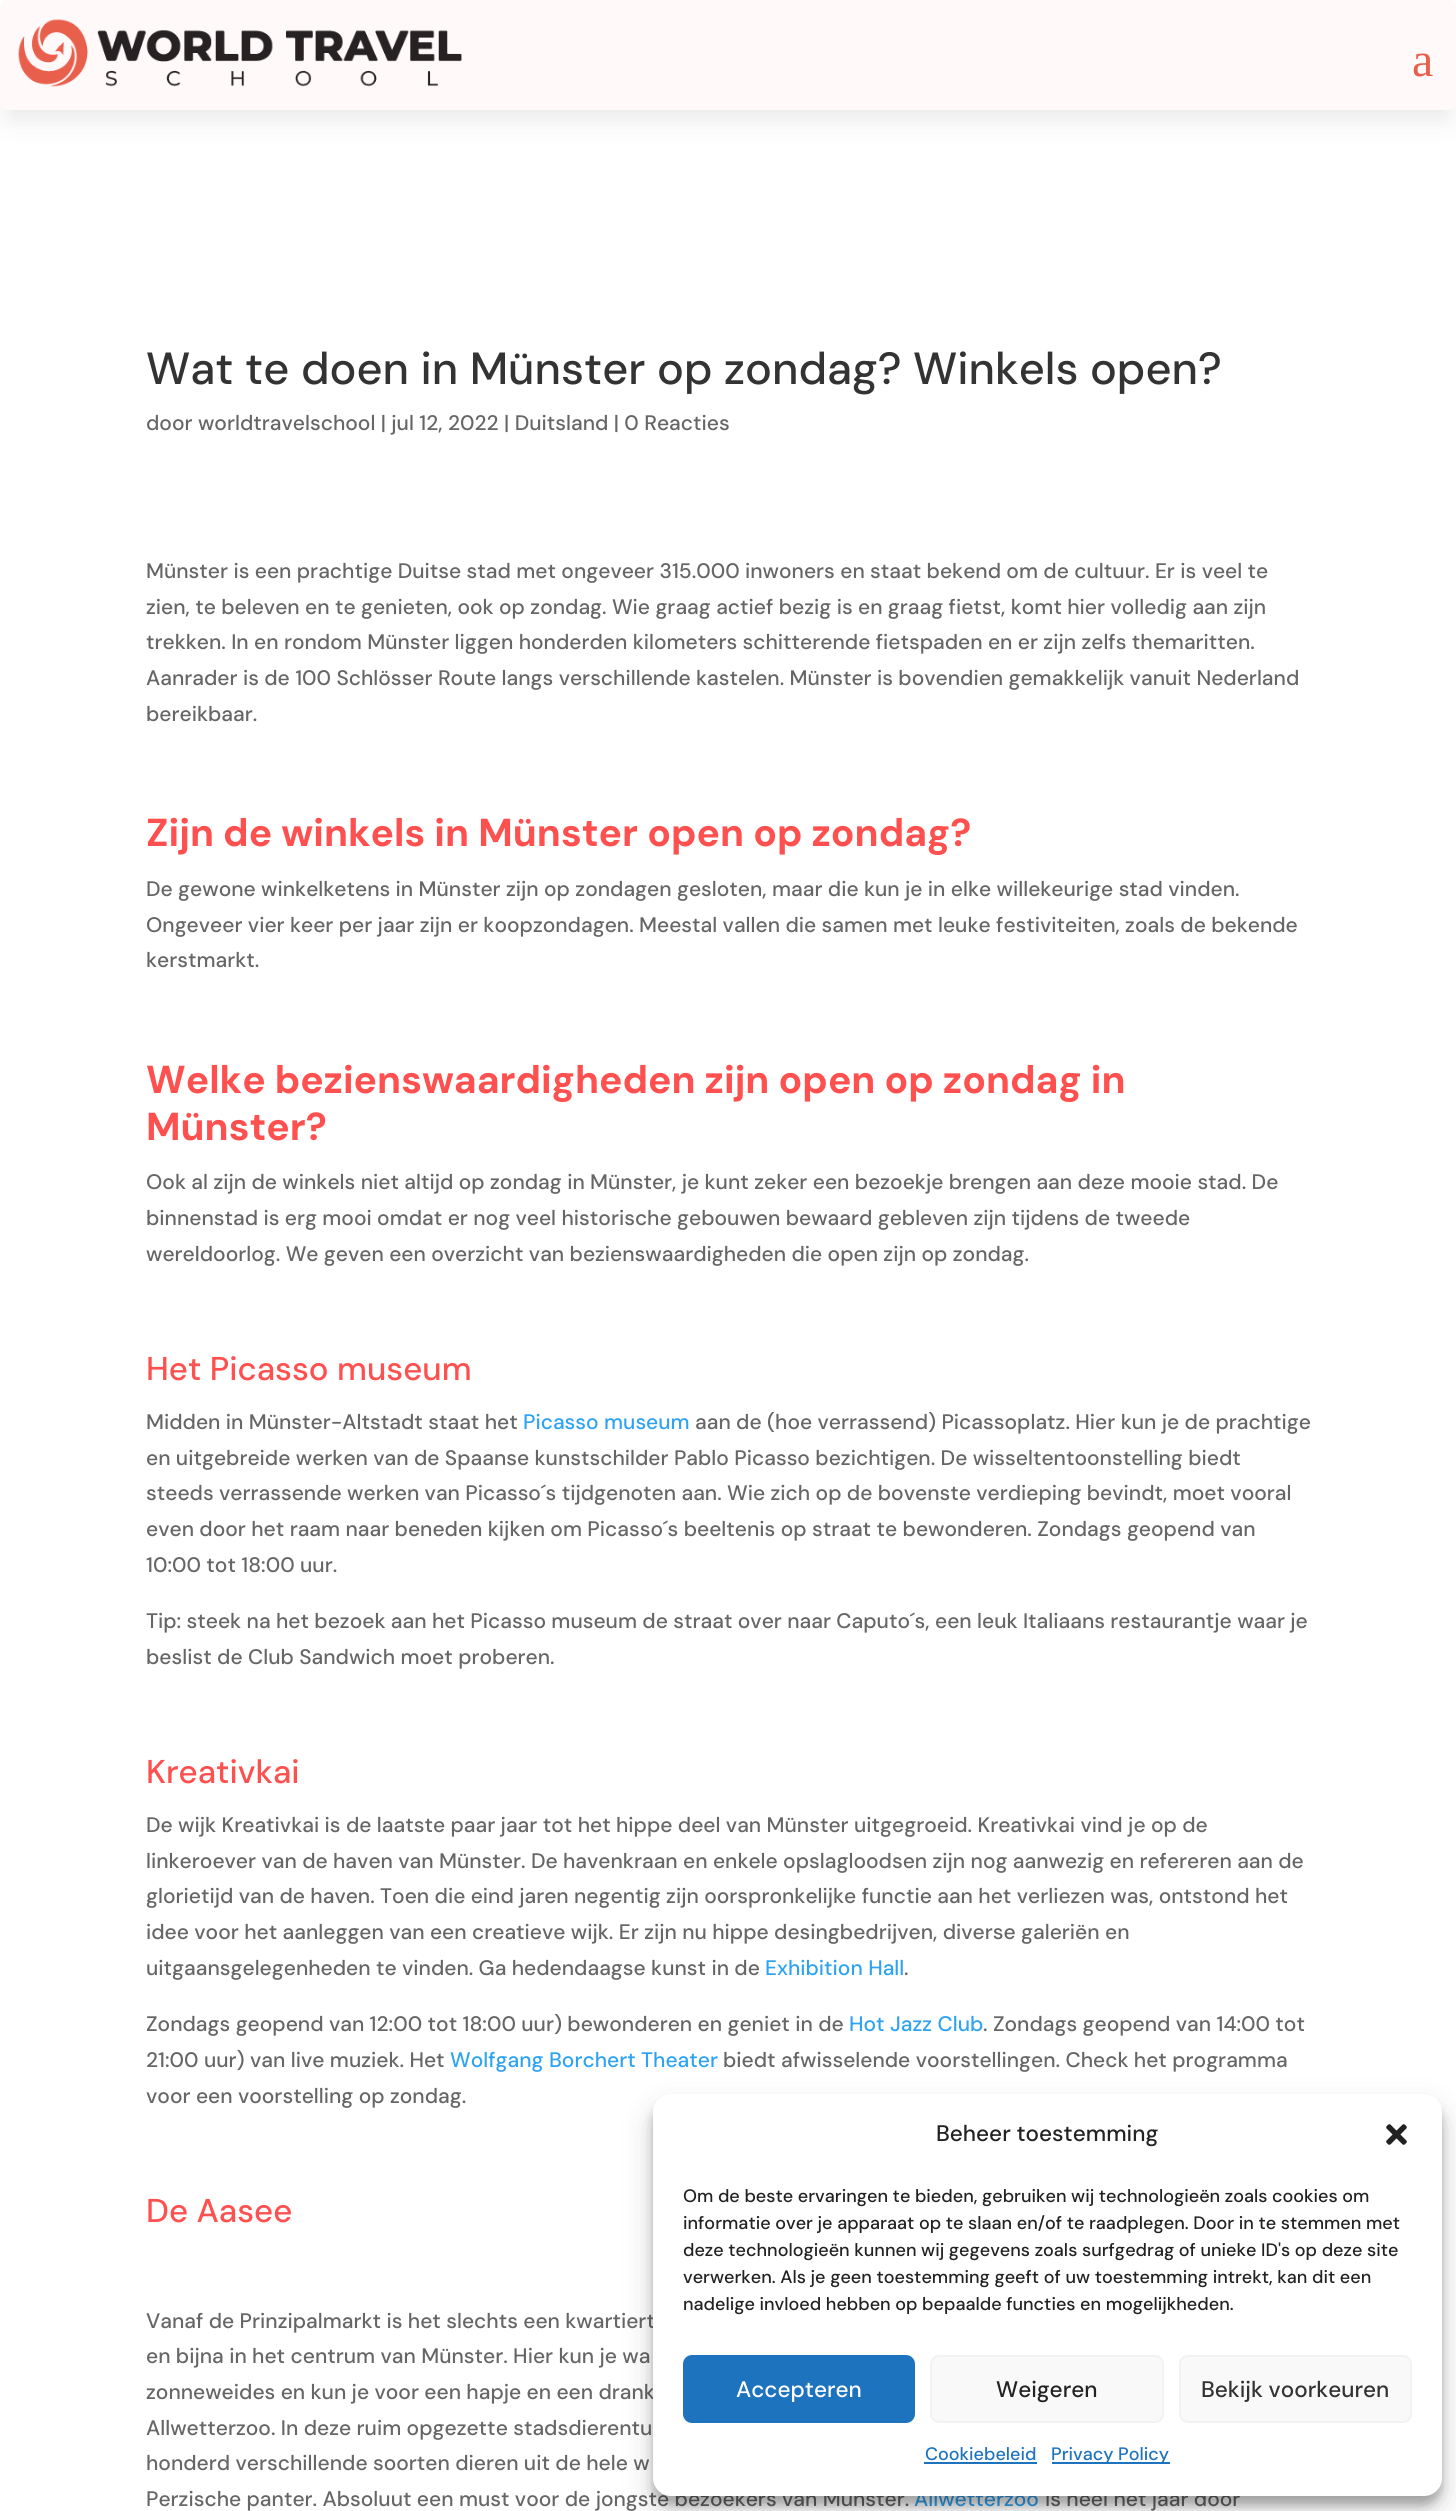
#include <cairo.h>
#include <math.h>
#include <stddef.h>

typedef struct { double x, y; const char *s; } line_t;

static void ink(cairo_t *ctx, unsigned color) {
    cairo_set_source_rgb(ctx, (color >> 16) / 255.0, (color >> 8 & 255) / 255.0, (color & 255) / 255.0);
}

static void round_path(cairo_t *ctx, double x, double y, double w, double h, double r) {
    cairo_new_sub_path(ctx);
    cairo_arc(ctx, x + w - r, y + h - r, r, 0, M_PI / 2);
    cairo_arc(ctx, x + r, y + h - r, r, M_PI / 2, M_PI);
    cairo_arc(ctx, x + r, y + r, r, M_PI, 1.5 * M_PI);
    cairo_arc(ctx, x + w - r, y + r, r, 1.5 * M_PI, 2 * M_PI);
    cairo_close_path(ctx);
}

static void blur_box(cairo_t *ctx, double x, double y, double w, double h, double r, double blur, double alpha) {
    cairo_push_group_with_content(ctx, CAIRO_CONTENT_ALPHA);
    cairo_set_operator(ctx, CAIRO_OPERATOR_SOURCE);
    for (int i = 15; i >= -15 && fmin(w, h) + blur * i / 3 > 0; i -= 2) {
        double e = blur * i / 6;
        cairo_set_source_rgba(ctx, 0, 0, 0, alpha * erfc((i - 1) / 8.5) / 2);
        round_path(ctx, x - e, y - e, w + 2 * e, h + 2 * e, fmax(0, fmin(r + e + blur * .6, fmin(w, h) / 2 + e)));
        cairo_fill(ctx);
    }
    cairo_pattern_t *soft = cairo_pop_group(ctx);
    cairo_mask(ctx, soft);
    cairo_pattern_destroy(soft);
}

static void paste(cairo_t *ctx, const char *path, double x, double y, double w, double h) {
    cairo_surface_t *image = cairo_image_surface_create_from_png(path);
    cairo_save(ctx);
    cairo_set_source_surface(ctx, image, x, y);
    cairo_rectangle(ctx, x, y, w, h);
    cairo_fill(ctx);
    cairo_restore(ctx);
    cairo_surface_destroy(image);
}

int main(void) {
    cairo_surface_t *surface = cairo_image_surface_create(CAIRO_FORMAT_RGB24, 1456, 2511);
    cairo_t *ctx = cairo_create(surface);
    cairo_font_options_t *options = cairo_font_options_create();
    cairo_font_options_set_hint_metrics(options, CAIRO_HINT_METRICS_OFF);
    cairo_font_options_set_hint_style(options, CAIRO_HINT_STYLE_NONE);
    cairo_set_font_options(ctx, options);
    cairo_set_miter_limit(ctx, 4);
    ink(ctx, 0xFFFFFF);
    cairo_paint(ctx);
    ink(ctx, 0x000000);
    blur_box(ctx, 9, 27, 1439, 92, 0, 13.5, 0.09);
    ink(ctx, 0xFFF9F9);
    round_path(ctx, 0, 0, 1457, 110, 8);
    cairo_fill(ctx);
    paste(ctx, "media/1.png", 18, 19, 444, 68);
    cairo_select_font_face(ctx, "Liberation Serif", CAIRO_FONT_SLANT_NORMAL, CAIRO_FONT_WEIGHT_NORMAL);
    cairo_set_font_size(ctx, 48);
    ink(ctx, 0xE8604C);
    cairo_move_to(ctx, 1412, 76);
    cairo_show_text(ctx, "a");
    cairo_select_font_face(ctx, "DM Sans Medium", CAIRO_FONT_SLANT_NORMAL, CAIRO_FONT_WEIGHT_NORMAL);
    cairo_set_font_size(ctx, 45);
    ink(ctx, 0x333333);
    cairo_move_to(ctx, 146, 384);
    cairo_show_text(ctx, "Wat te doen in Münster op zondag? Winkels open?");
    cairo_set_font_size(ctx, 21);
    ink(ctx, 0x666666);
    {
        static const line_t items[] = {
            {146, 430, "door worldtravelschool | jul 12, 2022 | Duitsland | 0 Reacties"},
            {146, 578, "Münster is een prachtige Duitse stad met ongeveer 315.000 inwoners en staat bekend om de cultuur. Er is veel te"},
            {146, 614, "zien, te beleven en te genieten, ook op zondag. Wie graag actief bezig is en graag fietst, komt hier volledig aan zijn"},
            {146, 649, "trekken. In en rondom Münster liggen honderden kilometers schitterende fietspaden en er zijn zelfs themaritten."},
            {146, 685, "Aanrader is de 100 Schlösser Route langs verschillende kastelen. Münster is bovendien gemakkelijk vanuit Nederland"},
            {146, 721, "bereikbaar."},
        };
        for (size_t i = 0; i < sizeof items / sizeof *items; i++) {
            cairo_move_to(ctx, items[i].x, items[i].y);
            cairo_show_text(ctx, items[i].s);
        }
    }
    cairo_select_font_face(ctx, "DM Sans", CAIRO_FONT_SLANT_NORMAL, CAIRO_FONT_WEIGHT_BOLD);
    cairo_set_font_size(ctx, 39);
    ink(ctx, 0xFF5050);
    cairo_move_to(ctx, 146, 846);
    cairo_show_text(ctx, "Zijn de winkels in Münster open op zondag?");
    cairo_select_font_face(ctx, "DM Sans Medium", CAIRO_FONT_SLANT_NORMAL, CAIRO_FONT_WEIGHT_NORMAL);
    cairo_set_font_size(ctx, 21);
    ink(ctx, 0x666666);
    {
        static const line_t items[] = {
            {146, 896, "De gewone winkelketens in Münster zijn op zondagen gesloten, maar die kun je in elke willekeurige stad vinden."},
            {146, 932, "Ongeveer vier keer per jaar zijn er koopzondagen. Meestal vallen die samen met leuke festiviteiten, zoals de bekende"},
            {146, 967, "kerstmarkt."},
        };
        for (size_t i = 0; i < sizeof items / sizeof *items; i++) {
            cairo_move_to(ctx, items[i].x, items[i].y);
            cairo_show_text(ctx, items[i].s);
        }
    }
    cairo_select_font_face(ctx, "DM Sans", CAIRO_FONT_SLANT_NORMAL, CAIRO_FONT_WEIGHT_BOLD);
    cairo_set_font_size(ctx, 39);
    ink(ctx, 0xFF5050);
    cairo_move_to(ctx, 146, 1093);
    cairo_show_text(ctx, "Welke bezienswaardigheden zijn open op zondag in");
    cairo_move_to(ctx, 146, 1140);
    cairo_show_text(ctx, "Münster?");
    cairo_select_font_face(ctx, "DM Sans Medium", CAIRO_FONT_SLANT_NORMAL, CAIRO_FONT_WEIGHT_NORMAL);
    cairo_set_font_size(ctx, 21);
    ink(ctx, 0x666666);
    {
        static const line_t items[] = {
            {146, 1189, "Ook al zijn de winkels niet altijd op zondag in Münster, je kunt zeker een bezoekje brengen aan deze mooie stad. De"},
            {146, 1225, "binnenstad is erg mooi omdat er nog veel historische gebouwen bewaard gebleven zijn tijdens de tweede"},
            {146, 1261, "wereldoorlog. We geven een overzicht van bezienswaardigheden die open zijn op zondag."},
        };
        for (size_t i = 0; i < sizeof items / sizeof *items; i++) {
            cairo_move_to(ctx, items[i].x, items[i].y);
            cairo_show_text(ctx, items[i].s);
        }
    }
    cairo_set_font_size(ctx, 33);
    ink(ctx, 0xFF5050);
    cairo_move_to(ctx, 146, 1380);
    cairo_show_text(ctx, "Het Picasso museum");
    cairo_set_font_size(ctx, 21);
    ink(ctx, 0x666666);
    cairo_move_to(ctx, 146, 1429);
    cairo_show_text(ctx, "Midden in Münster-Altstadt staat het");
    ink(ctx, 0x2EA3F2);
    cairo_move_to(ctx, 523, 1429);
    cairo_show_text(ctx, "Picasso museum");
    ink(ctx, 0x666666);
    {
        static const line_t items[] = {
            {695, 1429, "aan de (hoe verrassend) Picassoplatz. Hier kun je de prachtige"},
            {146, 1465, "en uitgebreide werken van de Spaanse kunstschilder Pablo Picasso bezichtigen. De wisseltentoonstelling biedt"},
            {146, 1500, "steeds verrassende werken van Picasso´s tijdgenoten aan. Wie zich op de bovenste verdieping bevindt, moet vooral"},
            {146, 1536, "even door het raam naar beneden kijken om Picasso´s beeltenis op straat te bewonderen. Zondags geopend van"},
            {146, 1572, "10:00 tot 18:00 uur."},
            {146, 1628, "Tip: steek na het bezoek aan het Picasso museum de straat over naar Caputo´s, een leuk Italiaans restaurantje waar je"},
            {146, 1664, "beslist de Club Sandwich moet proberen."},
        };
        for (size_t i = 0; i < sizeof items / sizeof *items; i++) {
            cairo_move_to(ctx, items[i].x, items[i].y);
            cairo_show_text(ctx, items[i].s);
        }
    }
    cairo_set_font_size(ctx, 33);
    ink(ctx, 0xFF5050);
    cairo_move_to(ctx, 146, 1783);
    cairo_show_text(ctx, "Kreativkai");
    cairo_set_font_size(ctx, 21);
    ink(ctx, 0x666666);
    {
        static const line_t items[] = {
            {146, 1832, "De wijk Kreativkai is de laatste paar jaar tot het hippe deel van Münster uitgegroeid. Kreativkai vind je op de"},
            {146, 1868, "linkeroever van de haven van Münster. De havenkraan en enkele opslagloodsen zijn nog aanwezig en refereren aan de"},
            {146, 1903, "glorietijd van de haven. Toen die eind jaren negentig zijn oorspronkelijke functie aan het verliezen was, ontstond het"},
            {146, 1939, "idee voor het aanleggen van een creatieve wijk. Er zijn nu hippe desingbedrijven, diverse galeriën en"},
            {146, 1975, "uitgaansgelegenheden te vinden. Ga hedendaagse kunst in de"},
        };
        for (size_t i = 0; i < sizeof items / sizeof *items; i++) {
            cairo_move_to(ctx, items[i].x, items[i].y);
            cairo_show_text(ctx, items[i].s);
        }
    }
    ink(ctx, 0x2EA3F2);
    cairo_move_to(ctx, 765, 1975);
    cairo_show_text(ctx, "Exhibition Hall");
    ink(ctx, 0x666666);
    cairo_move_to(ctx, 904, 1975);
    cairo_show_text(ctx, ".");
    cairo_move_to(ctx, 146, 2031);
    cairo_show_text(ctx, "Zondags geopend van 12:00 tot 18:00 uur) bewonderen en geniet in de");
    ink(ctx, 0x2EA3F2);
    cairo_move_to(ctx, 849, 2031);
    cairo_show_text(ctx, "Hot Jazz Club");
    ink(ctx, 0x666666);
    cairo_move_to(ctx, 983, 2031);
    cairo_show_text(ctx, ". Zondags geopend van 14:00 tot");
    cairo_move_to(ctx, 146, 2067);
    cairo_show_text(ctx, "21:00 uur) van live muziek. Het");
    ink(ctx, 0x2EA3F2);
    cairo_move_to(ctx, 450, 2067);
    cairo_show_text(ctx, "Wolfgang Borchert Theater");
    ink(ctx, 0x666666);
    cairo_move_to(ctx, 723, 2067);
    cairo_show_text(ctx, "biedt afwisselende voorstellingen. Check het programma");
    cairo_move_to(ctx, 146, 2103);
    cairo_show_text(ctx, "voor een voorstelling op zondag.");
    cairo_set_font_size(ctx, 33);
    ink(ctx, 0xFF5050);
    cairo_move_to(ctx, 146, 2222);
    cairo_show_text(ctx, "De Aasee");
    cairo_set_font_size(ctx, 21);
    ink(ctx, 0x666666);
    {
        static const line_t items[] = {
            {146, 2328, "Vanaf de Prinzipalmarkt is het slechts een kwartiert"},
            {146, 2363, "en bijna in het centrum van Münster. Hier kun je wa"},
            {146, 2399, "zonneweides en kun je voor een hapje en een drank"},
            {146, 2435, "Allwetterzoo. In deze ruim opgezette stadsdierentu"},
            {146, 2470, "honderd verschillende soorten dieren uit de hele w"},
            {146, 2506, "Perzische panter. Absoluut een must voor de jongste bezoekers van Münster."},
        };
        for (size_t i = 0; i < sizeof items / sizeof *items; i++) {
            cairo_move_to(ctx, items[i].x, items[i].y);
            cairo_show_text(ctx, items[i].s);
        }
    }
    ink(ctx, 0x2EA3F2);
    cairo_move_to(ctx, 914, 2506);
    cairo_show_text(ctx, "Allwetterzoo");
    ink(ctx, 0x666666);
    cairo_move_to(ctx, 1045, 2506);
    cairo_show_text(ctx, "is heel het jaar door");
    ink(ctx, 0x000000);
    blur_box(ctx, 653, 2103, 789, 402, 18, 4.5, 0.23);
    blur_box(ctx, 653, 2109, 789, 402, 18, 15, 0.19);
    ink(ctx, 0xFFFFFF);
    round_path(ctx, 653, 2094, 789, 402, 18);
    cairo_fill(ctx);
    cairo_set_font_size(ctx, 22.5);
    ink(ctx, 0x222222);
    cairo_move_to(ctx, 936, 2141);
    cairo_show_text(ctx, "Beheer toestemming");
    paste(ctx, "media/2.png", 1386, 2124, 21, 21);
    cairo_set_font_size(ctx, 18);
    {
        static const line_t items[] = {
            {683, 2202, "Om de beste ervaringen te bieden, gebruiken wij technologieën zoals cookies om"},
            {683, 2229, "informatie over je apparaat op te slaan en/of te raadplegen. Door in te stemmen met"},
            {683, 2256, "deze technologieën kunnen wij gegevens zoals surfgedrag of unieke ID's op deze site"},
            {683, 2283, "verwerken. Als je geen toestemming geeft of uw toestemming intrekt, kan dit een"},
            {683, 2310, "nadelige invloed hebben op bepaalde functies en mogelijkheden."},
        };
        for (size_t i = 0; i < sizeof items / sizeof *items; i++) {
            cairo_move_to(ctx, items[i].x, items[i].y);
            cairo_show_text(ctx, items[i].s);
        }
    }
    ink(ctx, 0x1E73BE);
    round_path(ctx, 684, 2356, 230, 66, 8);
    cairo_fill_preserve(ctx);
    cairo_stroke(ctx);
    cairo_set_font_size(ctx, 22.5);
    ink(ctx, 0xFFFFFF);
    cairo_move_to(ctx, 736, 2397);
    cairo_show_text(ctx, "Accepteren");
    ink(ctx, 0xF9F9F9);
    round_path(ctx, 931, 2356, 232, 66, 8);
    cairo_fill_preserve(ctx);
    ink(ctx, 0xF2F2F2);
    cairo_stroke(ctx);
    ink(ctx, 0x222222);
    cairo_move_to(ctx, 996, 2397);
    cairo_show_text(ctx, "Weigeren");
    ink(ctx, 0xF9F9F9);
    round_path(ctx, 1180, 2356, 231, 66, 8);
    cairo_fill_preserve(ctx);
    ink(ctx, 0xF2F2F2);
    cairo_stroke(ctx);
    ink(ctx, 0x333333);
    cairo_move_to(ctx, 1201, 2397);
    cairo_show_text(ctx, "Bekijk voorkeuren");
    cairo_set_font_size(ctx, 18);
    ink(ctx, 0x1E73BE);
    cairo_move_to(ctx, 925, 2460);
    cairo_show_text(ctx, "Cookiebeleid");
    cairo_rectangle(ctx, 924, 2462, 113, 2);
    cairo_fill(ctx);
    cairo_rectangle(ctx, 1052, 2462, 118, 2);
    cairo_fill(ctx);
    cairo_move_to(ctx, 1051, 2460);
    cairo_show_text(ctx, "Privacy Policy");
    cairo_surface_write_to_png(surface, "image.png");
    cairo_font_options_destroy(options);
    cairo_destroy(ctx);
    cairo_surface_destroy(surface);
    return 0;
}
